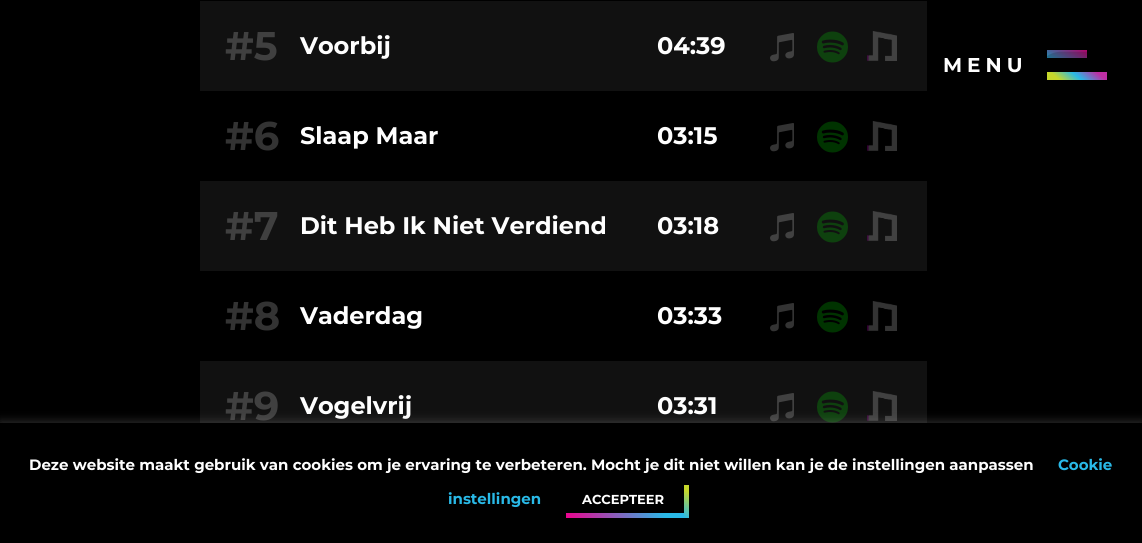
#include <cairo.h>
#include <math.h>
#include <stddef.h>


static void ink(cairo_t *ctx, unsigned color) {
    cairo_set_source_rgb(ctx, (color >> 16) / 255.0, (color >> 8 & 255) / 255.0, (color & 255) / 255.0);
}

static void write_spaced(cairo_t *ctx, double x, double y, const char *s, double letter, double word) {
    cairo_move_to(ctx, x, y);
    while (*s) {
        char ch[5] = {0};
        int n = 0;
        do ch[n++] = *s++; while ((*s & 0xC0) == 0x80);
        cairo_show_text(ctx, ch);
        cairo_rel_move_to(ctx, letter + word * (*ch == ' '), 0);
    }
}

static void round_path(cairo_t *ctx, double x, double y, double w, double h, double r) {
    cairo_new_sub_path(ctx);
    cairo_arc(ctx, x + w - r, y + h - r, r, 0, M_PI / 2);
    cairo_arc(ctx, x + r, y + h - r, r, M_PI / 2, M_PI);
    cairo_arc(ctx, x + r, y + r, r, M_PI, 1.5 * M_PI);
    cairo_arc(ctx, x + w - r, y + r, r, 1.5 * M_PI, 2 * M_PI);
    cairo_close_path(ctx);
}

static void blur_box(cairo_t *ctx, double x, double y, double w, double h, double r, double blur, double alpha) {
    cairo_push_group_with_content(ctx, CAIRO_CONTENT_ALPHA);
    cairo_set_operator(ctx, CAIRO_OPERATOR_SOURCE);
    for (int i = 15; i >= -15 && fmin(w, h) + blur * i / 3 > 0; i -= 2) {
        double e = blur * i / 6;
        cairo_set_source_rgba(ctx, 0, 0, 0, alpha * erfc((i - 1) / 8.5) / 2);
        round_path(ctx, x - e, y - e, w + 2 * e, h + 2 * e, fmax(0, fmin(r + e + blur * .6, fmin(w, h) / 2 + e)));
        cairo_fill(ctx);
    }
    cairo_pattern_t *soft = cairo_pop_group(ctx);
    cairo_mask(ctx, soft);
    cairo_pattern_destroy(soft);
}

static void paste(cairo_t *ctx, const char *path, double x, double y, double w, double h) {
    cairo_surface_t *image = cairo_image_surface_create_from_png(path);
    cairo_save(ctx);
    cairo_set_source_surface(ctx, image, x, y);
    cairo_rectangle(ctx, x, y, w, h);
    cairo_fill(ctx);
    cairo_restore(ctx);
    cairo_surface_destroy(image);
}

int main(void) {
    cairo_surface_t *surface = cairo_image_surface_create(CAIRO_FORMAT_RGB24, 1142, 543);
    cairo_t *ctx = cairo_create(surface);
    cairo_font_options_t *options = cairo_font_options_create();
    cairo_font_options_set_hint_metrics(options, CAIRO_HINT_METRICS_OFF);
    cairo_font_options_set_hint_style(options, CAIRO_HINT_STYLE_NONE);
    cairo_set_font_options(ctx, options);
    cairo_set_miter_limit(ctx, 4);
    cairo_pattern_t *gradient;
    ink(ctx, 0x000000);
    cairo_paint(ctx);
    ink(ctx, 0x111111);
    cairo_rectangle(ctx, 200, 1, 727, 90);
    cairo_fill(ctx);
    cairo_select_font_face(ctx, "Montserrat", CAIRO_FONT_SLANT_NORMAL, CAIRO_FONT_WEIGHT_BOLD);
    cairo_set_font_size(ctx, 40);
    ink(ctx, 0x404040);
    cairo_move_to(ctx, 225, 60);
    cairo_show_text(ctx, "#5");
    cairo_set_font_size(ctx, 24);
    ink(ctx, 0xFEFEFE);
    cairo_move_to(ctx, 300, 54);
    cairo_show_text(ctx, "Voorbij");
    cairo_move_to(ctx, 657, 54);
    cairo_show_text(ctx, "04:39");
    paste(ctx, "media/1.png", 770, 33, 24, 29);
    paste(ctx, "media/2.png", 817, 31, 31, 32);
    paste(ctx, "media/3.png", 867, 31, 30, 30);
    cairo_set_font_size(ctx, 40);
    ink(ctx, 0x333333);
    cairo_move_to(ctx, 225, 150);
    cairo_show_text(ctx, "#6");
    cairo_set_font_size(ctx, 24);
    ink(ctx, 0xFEFEFE);
    cairo_move_to(ctx, 300, 144);
    cairo_show_text(ctx, "Slaap Maar");
    cairo_move_to(ctx, 657, 144);
    cairo_show_text(ctx, "03:15");
    paste(ctx, "media/4.png", 770, 123, 24, 29);
    paste(ctx, "media/5.png", 817, 121, 31, 32);
    paste(ctx, "media/6.png", 867, 121, 30, 30);
    ink(ctx, 0x111111);
    cairo_rectangle(ctx, 200, 181, 727, 90);
    cairo_fill(ctx);
    cairo_set_font_size(ctx, 40);
    ink(ctx, 0x404040);
    cairo_move_to(ctx, 225, 240);
    cairo_show_text(ctx, "#7");
    cairo_set_font_size(ctx, 24);
    ink(ctx, 0xFEFEFE);
    cairo_move_to(ctx, 300, 234);
    cairo_show_text(ctx, "Dit Heb Ik Niet Verdiend");
    cairo_move_to(ctx, 657, 234);
    cairo_show_text(ctx, "03:18");
    paste(ctx, "media/1.png", 770, 213, 24, 29);
    paste(ctx, "media/2.png", 817, 211, 31, 32);
    paste(ctx, "media/3.png", 867, 211, 30, 30);
    cairo_set_font_size(ctx, 40);
    ink(ctx, 0x333333);
    cairo_move_to(ctx, 225, 330);
    cairo_show_text(ctx, "#8");
    cairo_set_font_size(ctx, 24);
    ink(ctx, 0xFEFEFE);
    cairo_move_to(ctx, 300, 324);
    cairo_show_text(ctx, "Vaderdag");
    cairo_move_to(ctx, 657, 324);
    cairo_show_text(ctx, "03:33");
    paste(ctx, "media/4.png", 770, 303, 24, 29);
    paste(ctx, "media/5.png", 817, 301, 31, 32);
    paste(ctx, "media/6.png", 867, 301, 30, 30);
    ink(ctx, 0x111111);
    cairo_rectangle(ctx, 200, 361, 727, 62);
    cairo_fill(ctx);
    cairo_set_font_size(ctx, 40);
    ink(ctx, 0x404040);
    cairo_move_to(ctx, 225, 420);
    cairo_show_text(ctx, "#9");
    cairo_set_font_size(ctx, 24);
    ink(ctx, 0xFEFEFE);
    cairo_move_to(ctx, 300, 414);
    cairo_show_text(ctx, "Vogelvrij");
    cairo_move_to(ctx, 657, 414);
    cairo_show_text(ctx, "03:31");
    paste(ctx, "media/1.png", 770, 393, 24, 29);
    paste(ctx, "media/2.png", 817, 391, 31, 32);
    paste(ctx, "media/3.png", 867, 391, 30, 30);
    ink(ctx, 0x000000);
    blur_box(ctx, 1042, 45, 50, 18, 0, 25, 1);
    gradient = cairo_pattern_create_linear(1060, 66, 1074, 42);
    cairo_pattern_add_color_stop_rgba(gradient, 0, 0.161, 0.725, 0.906, 1);
    cairo_pattern_add_color_stop_rgba(gradient, 1, 0.937, 0, 0.553, 1);
    cairo_set_source(ctx, gradient);
    cairo_pattern_destroy(gradient);
    cairo_rectangle(ctx, 1047, 50, 40, 8);
    cairo_fill(ctx);
    ink(ctx, 0x000000);
    blur_box(ctx, 1052, 67, 50, 18, 0, 30.5, 1);
    gradient = cairo_pattern_create_linear(1067, 88, 1087, 64);
    cairo_pattern_add_color_stop_rgba(gradient, 0.05, 0.776, 0.843, 0.169, 1);
    cairo_pattern_add_color_stop_rgba(gradient, 0.5, 0.161, 0.725, 0.906, 1);
    cairo_pattern_add_color_stop_rgba(gradient, 1, 0.745, 0.18, 0.643, 1);
    cairo_set_source(ctx, gradient);
    cairo_pattern_destroy(gradient);
    cairo_rectangle(ctx, 1047, 72, 60, 8);
    cairo_fill(ctx);
    cairo_set_font_size(ctx, 20);
    ink(ctx, 0xFEFEFE);
    write_spaced(ctx, 943, 72, "MENU", 5, 0);
    ink(ctx, 0xACABAB);
    blur_box(ctx, 0, 422, 1142, 120, 0, 5, 0.3);
    ink(ctx, 0x000000);
    cairo_rectangle(ctx, 0, 423, 1142, 120);
    cairo_fill(ctx);
    cairo_set_font_size(ctx, 15);
    ink(ctx, 0xFEFEFE);
    cairo_move_to(ctx, 29, 470);
    cairo_show_text(ctx, "Deze website maakt gebruik van cookies om je ervaring te verbeteren. Mocht je dit niet willen kan je de instellingen aanpassen");
    ink(ctx, 0x29B9E7);
    cairo_move_to(ctx, 1058, 470);
    cairo_show_text(ctx, "Cookie");
    cairo_move_to(ctx, 448, 504);
    cairo_show_text(ctx, "instellingen");
    cairo_set_font_size(ctx, 13);
    ink(ctx, 0xFEFEFE);
    cairo_move_to(ctx, 582, 504);
    cairo_show_text(ctx, "ACCEPTEER");
    gradient = cairo_pattern_create_linear(580, 543, 675, 488);
    cairo_pattern_add_color_stop_rgba(gradient, 0, 0.937, 0, 0.553, 1);
    cairo_pattern_add_color_stop_rgba(gradient, 0.8, 0.161, 0.725, 0.906, 1);
    cairo_set_source(ctx, gradient);
    cairo_pattern_destroy(gradient);
    cairo_rectangle(ctx, 566, 513, 123, 5);
    cairo_fill(ctx);
    gradient = cairo_pattern_create_linear(679, 515, 694, 488);
    cairo_pattern_add_color_stop_rgba(gradient, 0, 0.161, 0.725, 0.906, 1);
    cairo_pattern_add_color_stop_rgba(gradient, 0.8, 0.776, 0.843, 0.169, 1);
    cairo_set_source(ctx, gradient);
    cairo_pattern_destroy(gradient);
    cairo_rectangle(ctx, 684, 485, 5, 33);
    cairo_fill(ctx);
    cairo_surface_write_to_png(surface, "image.png");
    cairo_font_options_destroy(options);
    cairo_destroy(ctx);
    cairo_surface_destroy(surface);
    return 0;
}
